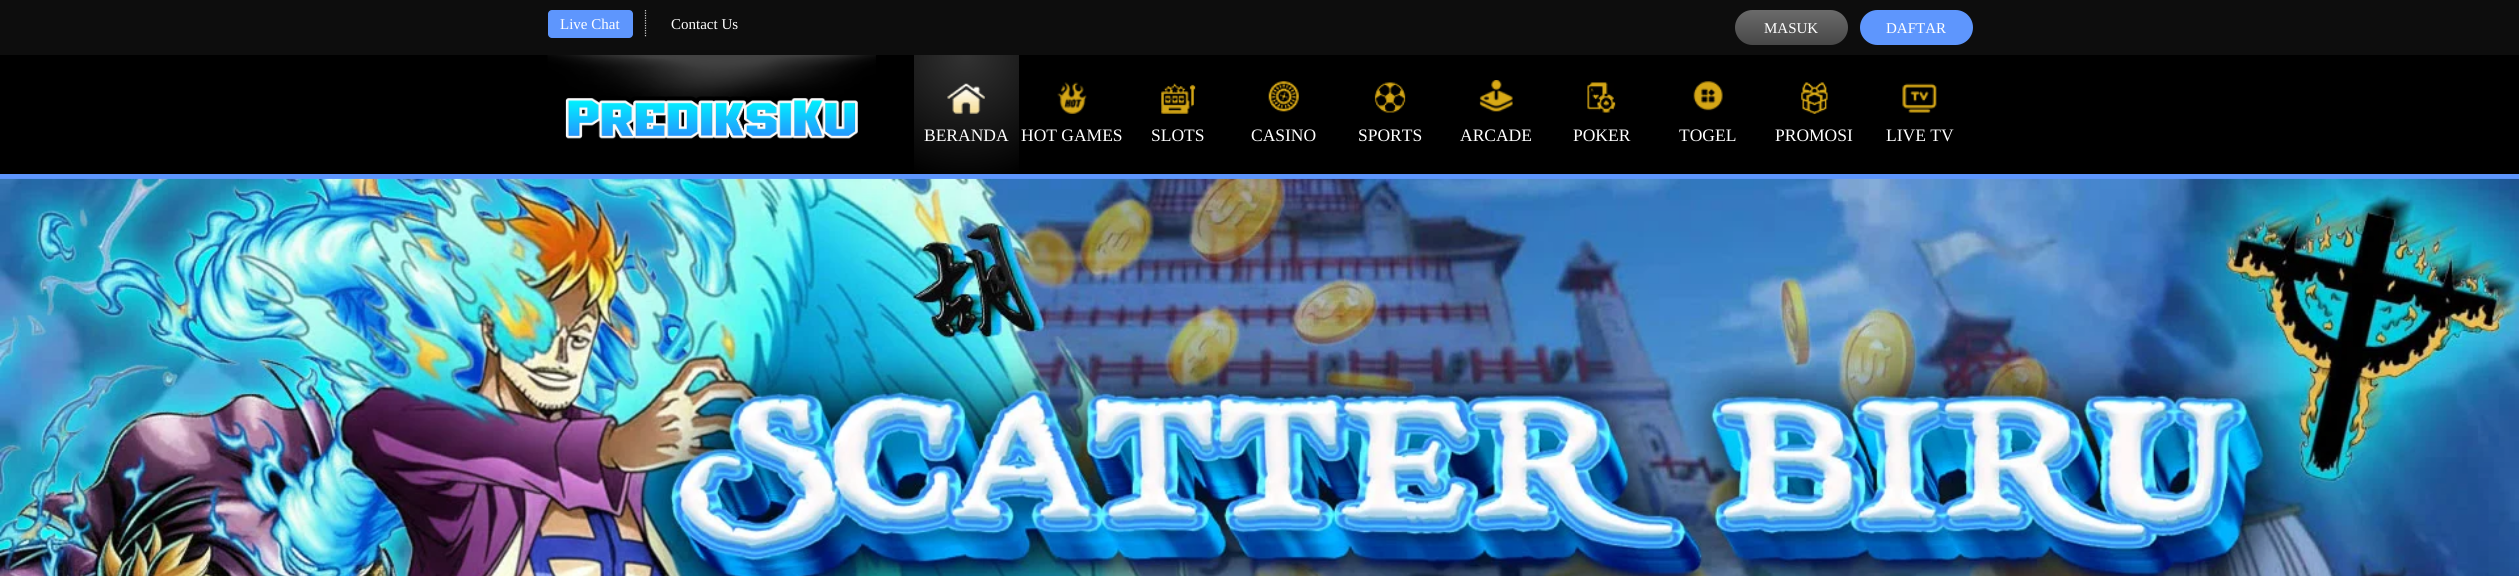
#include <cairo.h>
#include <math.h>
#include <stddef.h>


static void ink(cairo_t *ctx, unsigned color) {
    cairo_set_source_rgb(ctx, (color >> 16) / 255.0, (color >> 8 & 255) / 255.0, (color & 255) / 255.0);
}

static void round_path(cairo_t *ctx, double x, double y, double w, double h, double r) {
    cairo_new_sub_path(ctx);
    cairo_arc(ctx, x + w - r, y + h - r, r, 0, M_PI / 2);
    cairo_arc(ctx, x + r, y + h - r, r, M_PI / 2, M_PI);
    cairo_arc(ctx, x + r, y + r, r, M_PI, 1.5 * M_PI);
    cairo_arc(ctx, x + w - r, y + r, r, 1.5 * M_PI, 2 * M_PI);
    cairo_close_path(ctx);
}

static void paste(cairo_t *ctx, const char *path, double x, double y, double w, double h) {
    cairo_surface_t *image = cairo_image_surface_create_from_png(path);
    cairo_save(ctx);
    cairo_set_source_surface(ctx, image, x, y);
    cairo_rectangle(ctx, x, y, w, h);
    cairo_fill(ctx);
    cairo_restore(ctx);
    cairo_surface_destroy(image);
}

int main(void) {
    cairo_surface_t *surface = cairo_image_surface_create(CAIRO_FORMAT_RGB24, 2519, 576);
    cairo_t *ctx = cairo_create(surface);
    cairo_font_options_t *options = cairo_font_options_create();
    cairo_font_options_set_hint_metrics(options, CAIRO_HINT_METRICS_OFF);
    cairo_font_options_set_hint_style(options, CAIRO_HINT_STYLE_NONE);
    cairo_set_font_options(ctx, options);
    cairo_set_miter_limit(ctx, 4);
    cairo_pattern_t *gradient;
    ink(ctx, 0x0D0D0D);
    cairo_paint(ctx);
    ink(ctx, 0x5E96FD);
    round_path(ctx, 548, 10, 85, 28, 4);
    cairo_fill(ctx);
    cairo_select_font_face(ctx, "Liberation Serif", CAIRO_FONT_SLANT_NORMAL, CAIRO_FONT_WEIGHT_NORMAL);
    cairo_set_font_size(ctx, 15);
    ink(ctx, 0xFFFFFF);
    cairo_move_to(ctx, 560, 29);
    cairo_show_text(ctx, "Live Chat");
    cairo_new_path(ctx);
    cairo_move_to(ctx, 645.5, 10);
    cairo_line_to(ctx, 645.5, 37.5);
    ink(ctx, 0xCCCCCC);
    cairo_set_line_width(ctx, 1.2);
    cairo_set_dash(ctx, (double[]){1.25, 1.25}, 2, 0);
    cairo_stroke(ctx);
    ink(ctx, 0xFFFFFF);
    cairo_move_to(ctx, 671, 29);
    cairo_show_text(ctx, "Contact Us");
    gradient = cairo_pattern_create_linear(1791, 10, 1791, 45);
    cairo_pattern_add_color_stop_rgba(gradient, 0, 0.416, 0.416, 0.416, 1);
    cairo_pattern_add_color_stop_rgba(gradient, 1, 0.282, 0.282, 0.282, 1);
    cairo_set_source(ctx, gradient);
    cairo_pattern_destroy(gradient);
    round_path(ctx, 1735, 10, 113, 35, 17.5);
    cairo_fill(ctx);
    ink(ctx, 0xFFFFFF);
    cairo_move_to(ctx, 1764, 33);
    cairo_show_text(ctx, "MASUK");
    ink(ctx, 0x5E96FD);
    round_path(ctx, 1860, 10, 113, 35, 17.5);
    cairo_fill(ctx);
    ink(ctx, 0xFFFFFF);
    cairo_move_to(ctx, 1886, 33);
    cairo_show_text(ctx, "DAFTAR");
    ink(ctx, 0x000000);
    cairo_rectangle(ctx, 0, 55, 2519, 119);
    cairo_fill(ctx);
    ink(ctx, 0x5E96FD);
    cairo_rectangle(ctx, 0, 174, 2519, 5);
    cairo_fill(ctx);
    paste(ctx, "media/1.png", 547, 55, 329, 56);
    paste(ctx, "media/2.png", 565, 96, 293, 43);
    gradient = cairo_pattern_create_radial(966, 55, 0, 966, 55, 130);
    cairo_pattern_add_color_stop_rgba(gradient, 0, 0.2, 0.2, 0.2, 1);
    cairo_pattern_add_color_stop_rgba(gradient, 1, 0, 0, 0, 1);
    cairo_set_source(ctx, gradient);
    cairo_pattern_destroy(gradient);
    cairo_rectangle(ctx, 914, 55, 105, 119);
    cairo_fill(ctx);
    paste(ctx, "media/3.png", 947, 83, 38, 31);
    cairo_set_font_size(ctx, 17.5);
    ink(ctx, 0xFFFFFF);
    cairo_move_to(ctx, 924, 141);
    cairo_show_text(ctx, "BERANDA");
    paste(ctx, "media/4.png", 1057, 82, 30, 32);
    cairo_move_to(ctx, 1021, 141);
    cairo_show_text(ctx, "HOT GAMES");
    paste(ctx, "media/5.png", 1161, 83, 35, 31);
    cairo_move_to(ctx, 1151, 141);
    cairo_show_text(ctx, "SLOTS");
    paste(ctx, "media/6.png", 1268, 81, 31, 31);
    cairo_move_to(ctx, 1251, 141);
    cairo_show_text(ctx, "CASINO");
    paste(ctx, "media/7.png", 1374, 82, 32, 31);
    cairo_move_to(ctx, 1358, 141);
    cairo_show_text(ctx, "SPORTS");
    paste(ctx, "media/8.png", 1479, 80, 34, 32);
    cairo_move_to(ctx, 1460, 141);
    cairo_show_text(ctx, "ARCADE");
    paste(ctx, "media/9.png", 1587, 82, 29, 31);
    cairo_move_to(ctx, 1573, 141);
    cairo_show_text(ctx, "POKER");
    paste(ctx, "media/10.png", 1693, 81, 30, 30);
    cairo_move_to(ctx, 1679, 141);
    cairo_show_text(ctx, "TOGEL");
    paste(ctx, "media/11.png", 1801, 82, 27, 32);
    cairo_move_to(ctx, 1775, 141);
    cairo_show_text(ctx, "PROMOSI");
    paste(ctx, "media/12.png", 1902, 83, 35, 30);
    cairo_move_to(ctx, 1886, 141);
    cairo_show_text(ctx, "LIVE TV");
    paste(ctx, "media/13.png", 0, 178, 2519, 398);
    cairo_surface_write_to_png(surface, "image.png");
    cairo_font_options_destroy(options);
    cairo_destroy(ctx);
    cairo_surface_destroy(surface);
    return 0;
}
